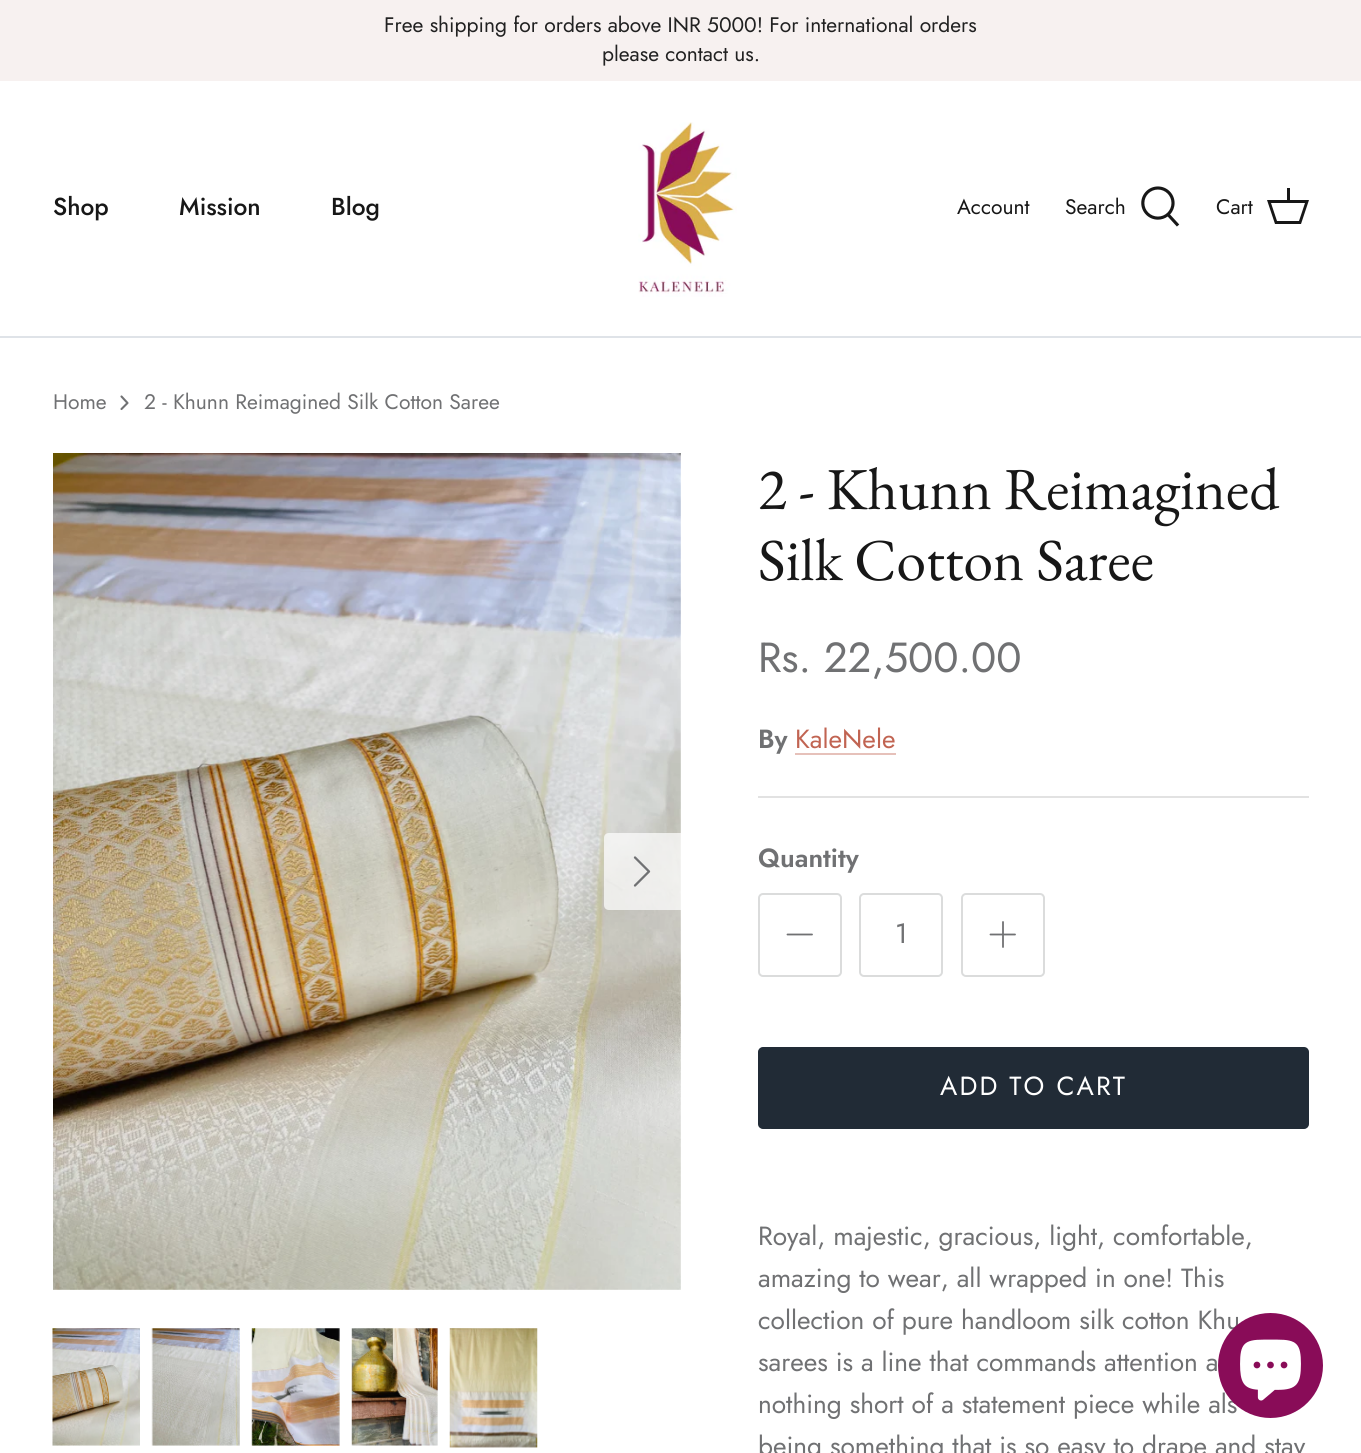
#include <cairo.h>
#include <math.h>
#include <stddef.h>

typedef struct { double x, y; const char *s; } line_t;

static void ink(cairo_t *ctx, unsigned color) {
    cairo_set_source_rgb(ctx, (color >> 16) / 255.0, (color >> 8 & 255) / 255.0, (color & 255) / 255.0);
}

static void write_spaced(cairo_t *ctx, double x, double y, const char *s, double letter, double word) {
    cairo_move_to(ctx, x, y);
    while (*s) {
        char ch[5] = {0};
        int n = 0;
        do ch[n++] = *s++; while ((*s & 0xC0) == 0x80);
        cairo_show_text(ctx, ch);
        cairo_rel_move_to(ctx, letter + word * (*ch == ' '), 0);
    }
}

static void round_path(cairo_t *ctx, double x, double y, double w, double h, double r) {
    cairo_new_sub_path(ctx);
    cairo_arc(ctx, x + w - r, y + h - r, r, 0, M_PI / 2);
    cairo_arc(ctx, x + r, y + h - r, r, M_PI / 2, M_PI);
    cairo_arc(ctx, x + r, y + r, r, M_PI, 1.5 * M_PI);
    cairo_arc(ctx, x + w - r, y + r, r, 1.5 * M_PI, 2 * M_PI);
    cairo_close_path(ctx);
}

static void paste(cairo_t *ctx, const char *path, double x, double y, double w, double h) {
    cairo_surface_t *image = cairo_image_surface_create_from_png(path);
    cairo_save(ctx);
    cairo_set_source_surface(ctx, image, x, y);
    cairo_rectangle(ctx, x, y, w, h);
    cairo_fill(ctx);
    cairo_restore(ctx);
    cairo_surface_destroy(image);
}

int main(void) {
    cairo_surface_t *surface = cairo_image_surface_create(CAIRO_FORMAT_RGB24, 1361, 1453);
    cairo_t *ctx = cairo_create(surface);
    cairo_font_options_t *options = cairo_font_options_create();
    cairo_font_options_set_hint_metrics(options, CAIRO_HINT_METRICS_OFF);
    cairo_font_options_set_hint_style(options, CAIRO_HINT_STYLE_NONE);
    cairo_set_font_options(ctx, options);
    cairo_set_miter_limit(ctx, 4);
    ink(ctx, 0xFFFFFF);
    cairo_paint(ctx);
    ink(ctx, 0xF7F1F0);
    cairo_rectangle(ctx, 0, 0, 1361, 81);
    cairo_fill(ctx);
    cairo_select_font_face(ctx, "Jost", CAIRO_FONT_SLANT_NORMAL, CAIRO_FONT_WEIGHT_NORMAL);
    cairo_set_font_size(ctx, 21);
    ink(ctx, 0x212121);
    cairo_move_to(ctx, 384, 32);
    cairo_show_text(ctx, "Free shipping for orders above INR 5000! For international orders");
    cairo_move_to(ctx, 602, 61);
    cairo_show_text(ctx, "please contact us.");
    ink(ctx, 0xDFE3E8);
    cairo_rectangle(ctx, 0, 336, 1361, 2);
    cairo_fill(ctx);
    cairo_select_font_face(ctx, "Jost Medium", CAIRO_FONT_SLANT_NORMAL, CAIRO_FONT_WEIGHT_NORMAL);
    cairo_set_font_size(ctx, 24.5);
    ink(ctx, 0x171717);
    {
        static const line_t items[] = {
            {53, 215, "Shop"},
            {179, 215, "Mission"},
            {331, 215, "Blog"},
        };
        for (size_t i = 0; i < sizeof items / sizeof *items; i++) {
            cairo_move_to(ctx, items[i].x, items[i].y);
            cairo_show_text(ctx, items[i].s);
        }
    }
    paste(ctx, "media/1.png", 638, 122, 99, 175);
    cairo_select_font_face(ctx, "Jost", CAIRO_FONT_SLANT_NORMAL, CAIRO_FONT_WEIGHT_NORMAL);
    cairo_set_font_size(ctx, 21);
    cairo_move_to(ctx, 957, 214);
    cairo_show_text(ctx, "Account");
    cairo_move_to(ctx, 1065, 214);
    cairo_show_text(ctx, "Search");
    paste(ctx, "media/2.png", 1141, 186, 39, 41);
    cairo_move_to(ctx, 1216, 214);
    cairo_show_text(ctx, "Cart");
    cairo_new_path(ctx);
    cairo_move_to(ctx, 1287, 200);
    cairo_line_to(ctx, 1287, 188);
    cairo_line_to(ctx, 1290, 188);
    cairo_line_to(ctx, 1290, 200);
    cairo_line_to(ctx, 1309, 200);
    cairo_line_to(ctx, 1301, 224);
    cairo_line_to(ctx, 1275, 224);
    cairo_line_to(ctx, 1267, 200);
    cairo_close_path(ctx);
    cairo_move_to(ctx, 1271, 203);
    cairo_line_to(ctx, 1277, 221);
    cairo_line_to(ctx, 1299, 221);
    cairo_line_to(ctx, 1305, 203);
    cairo_close_path(ctx);
    cairo_fill(ctx);
    ink(ctx, 0x707173);
    cairo_move_to(ctx, 53, 409);
    cairo_show_text(ctx, "Home");
    cairo_new_path(ctx);
    cairo_move_to(ctx, 121.5, 409);
    cairo_line_to(ctx, 127.5, 403);
    cairo_line_to(ctx, 121.5, 396.5);
    cairo_set_line_width(ctx, 2.1);
    cairo_set_line_cap(ctx, CAIRO_LINE_CAP_ROUND);
    cairo_set_line_join(ctx, CAIRO_LINE_JOIN_ROUND);
    cairo_stroke(ctx);
    cairo_move_to(ctx, 144, 409);
    cairo_show_text(ctx, "2 - Khunn Reimagined Silk Cotton Saree");
    paste(ctx, "media/3.png", 53, 453, 628, 837);
    cairo_set_source_rgba(ctx, 1, 1, 1, 0.7);
    cairo_new_path(ctx);
    cairo_move_to(ctx, 609, 833);
    cairo_line_to(ctx, 681, 833);
    cairo_line_to(ctx, 681, 910);
    cairo_line_to(ctx, 609, 910);
    cairo_curve_to(ctx, 606, 910, 604, 908, 604, 905);
    cairo_line_to(ctx, 604, 838);
    cairo_curve_to(ctx, 604, 835, 606, 833, 609, 833);
    cairo_close_path(ctx);
    cairo_fill(ctx);
    cairo_new_path(ctx);
    cairo_move_to(ctx, 635, 885.5);
    cairo_line_to(ctx, 649, 871.5);
    cairo_line_to(ctx, 635, 857.5);
    ink(ctx, 0x707173);
    cairo_set_line_width(ctx, 2.3);
    cairo_stroke(ctx);
    paste(ctx, "media/4.png", 52, 1328, 88, 118);
    paste(ctx, "media/5.png", 151, 1328, 89, 118);
    paste(ctx, "media/6.png", 251, 1328, 89, 118);
    paste(ctx, "media/7.png", 351, 1328, 87, 118);
    paste(ctx, "media/8.png", 449, 1328, 89, 120);
    cairo_select_font_face(ctx, "EB Garamond", CAIRO_FONT_SLANT_NORMAL, CAIRO_FONT_WEIGHT_NORMAL);
    cairo_set_font_size(ctx, 59.5);
    ink(ctx, 0x171717);
    cairo_move_to(ctx, 758, 509);
    cairo_show_text(ctx, "2 - Khunn Reimagined");
    cairo_move_to(ctx, 758, 580);
    cairo_show_text(ctx, "Silk Cotton Saree");
    cairo_select_font_face(ctx, "Jost", CAIRO_FONT_SLANT_NORMAL, CAIRO_FONT_WEIGHT_NORMAL);
    cairo_set_font_size(ctx, 42);
    ink(ctx, 0x707173);
    cairo_move_to(ctx, 758, 672);
    cairo_show_text(ctx, "Rs. 22,500.00");
    cairo_select_font_face(ctx, "Jost SemiBold", CAIRO_FONT_SLANT_NORMAL, CAIRO_FONT_WEIGHT_NORMAL);
    cairo_set_font_size(ctx, 26.25);
    cairo_move_to(ctx, 758, 748);
    cairo_show_text(ctx, "By");
    cairo_select_font_face(ctx, "Jost", CAIRO_FONT_SLANT_NORMAL, CAIRO_FONT_WEIGHT_NORMAL);
    ink(ctx, 0xC16452);
    cairo_move_to(ctx, 795, 748);
    cairo_show_text(ctx, "KaleNele");
    ink(ctx, 0xE6C1BA);
    cairo_rectangle(ctx, 795, 753, 101, 2);
    cairo_fill(ctx);
    ink(ctx, 0xE2E2E2);
    cairo_rectangle(ctx, 758, 796, 551, 2);
    cairo_fill(ctx);
    cairo_select_font_face(ctx, "Jost SemiBold", CAIRO_FONT_SLANT_NORMAL, CAIRO_FONT_WEIGHT_NORMAL);
    ink(ctx, 0x707173);
    cairo_move_to(ctx, 758, 867);
    cairo_show_text(ctx, "Quantity");
    round_path(ctx, 759, 894, 82, 82, 4);
    ink(ctx, 0xDBDCDC);
    cairo_set_line_width(ctx, 2);
    cairo_set_line_cap(ctx, CAIRO_LINE_CAP_BUTT);
    cairo_set_line_join(ctx, CAIRO_LINE_JOIN_MITER);
    cairo_stroke(ctx);
    cairo_new_path(ctx);
    cairo_move_to(ctx, 787.5, 934.5);
    cairo_line_to(ctx, 812, 934.5);
    ink(ctx, 0x707173);
    cairo_set_line_width(ctx, 1.8);
    cairo_set_line_cap(ctx, CAIRO_LINE_CAP_ROUND);
    cairo_set_line_join(ctx, CAIRO_LINE_JOIN_ROUND);
    cairo_stroke(ctx);
    round_path(ctx, 860, 894, 82, 82, 4);
    ink(ctx, 0xDBDCDC);
    cairo_set_line_width(ctx, 2);
    cairo_set_line_cap(ctx, CAIRO_LINE_CAP_BUTT);
    cairo_set_line_join(ctx, CAIRO_LINE_JOIN_MITER);
    cairo_stroke(ctx);
    cairo_select_font_face(ctx, "Jost", CAIRO_FONT_SLANT_NORMAL, CAIRO_FONT_WEIGHT_NORMAL);
    cairo_set_font_size(ctx, 28);
    ink(ctx, 0x707173);
    cairo_move_to(ctx, 895, 943);
    cairo_show_text(ctx, "1");
    round_path(ctx, 962, 894, 82, 82, 4);
    ink(ctx, 0xDBDCDC);
    cairo_stroke(ctx);
    cairo_new_path(ctx);
    cairo_move_to(ctx, 1003, 922);
    cairo_line_to(ctx, 1003, 947);
    cairo_move_to(ctx, 990.5, 934.5);
    cairo_line_to(ctx, 1015, 934.5);
    ink(ctx, 0x707173);
    cairo_set_line_width(ctx, 1.8);
    cairo_set_line_cap(ctx, CAIRO_LINE_CAP_ROUND);
    cairo_set_line_join(ctx, CAIRO_LINE_JOIN_ROUND);
    cairo_stroke(ctx);
    ink(ctx, 0x212B36);
    round_path(ctx, 759, 1048, 549, 80, 4);
    cairo_fill_preserve(ctx);
    cairo_set_line_width(ctx, 2);
    cairo_set_line_cap(ctx, CAIRO_LINE_CAP_BUTT);
    cairo_set_line_join(ctx, CAIRO_LINE_JOIN_MITER);
    cairo_stroke(ctx);
    cairo_set_font_size(ctx, 26.25);
    ink(ctx, 0xFFFFFF);
    write_spaced(ctx, 940, 1095, "ADD TO CART", 2.1, 0);
    ink(ctx, 0x707173);
    {
        static const line_t items[] = {
            {758, 1245, "Royal, majestic, gracious, light, comfortable,"},
            {758, 1287, "amazing to wear, all wrapped in one! This"},
            {758, 1329, "collection of pure handloom silk cotton Khu"},
            {758, 1371, "sarees is a line that commands attention a"},
            {758, 1413, "nothing short of a statement piece while als"},
            {758, 1455, "being something that is so easy to drape and stay"},
        };
        for (size_t i = 0; i < sizeof items / sizeof *items; i++) {
            cairo_move_to(ctx, items[i].x, items[i].y);
            cairo_show_text(ctx, items[i].s);
        }
    }
    ink(ctx, 0x890C58);
    cairo_new_path(ctx);
    cairo_arc(ctx, 1270.5, 1365.5, 52.5, 0, 2 * M_PI);
    cairo_fill(ctx);
    paste(ctx, "media/9.png", 1240, 1339, 61, 62);
    cairo_surface_write_to_png(surface, "image.png");
    cairo_font_options_destroy(options);
    cairo_destroy(ctx);
    cairo_surface_destroy(surface);
    return 0;
}
